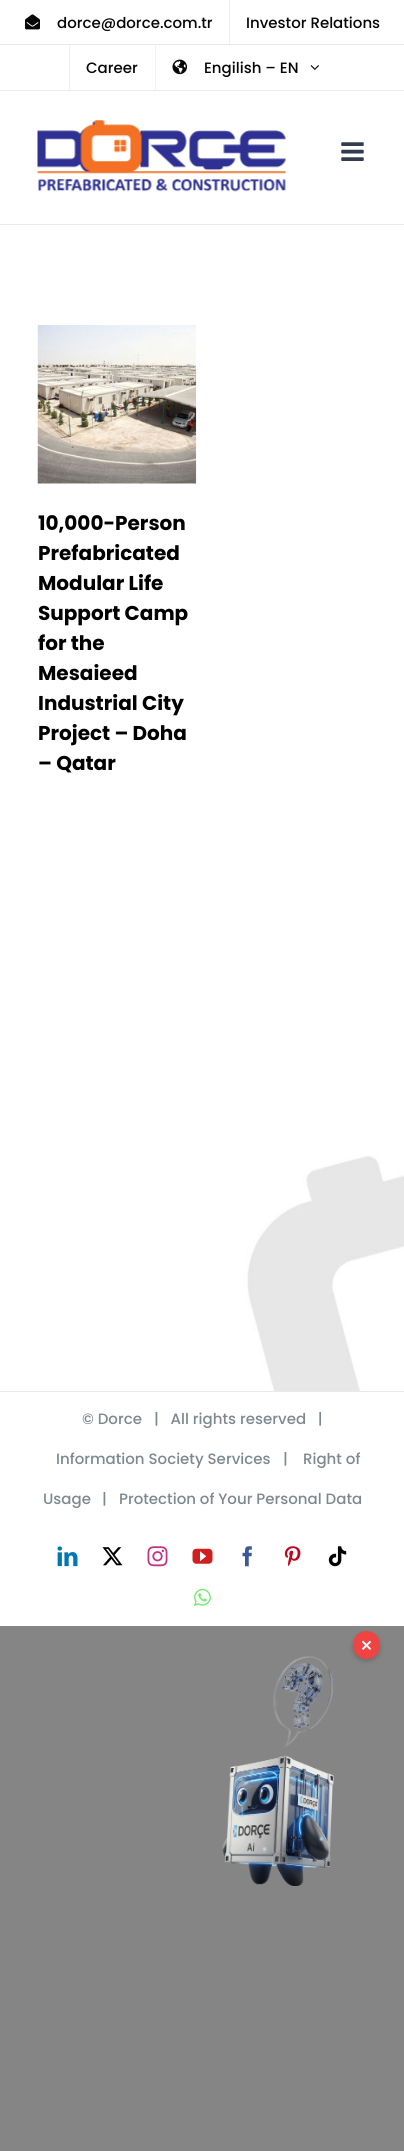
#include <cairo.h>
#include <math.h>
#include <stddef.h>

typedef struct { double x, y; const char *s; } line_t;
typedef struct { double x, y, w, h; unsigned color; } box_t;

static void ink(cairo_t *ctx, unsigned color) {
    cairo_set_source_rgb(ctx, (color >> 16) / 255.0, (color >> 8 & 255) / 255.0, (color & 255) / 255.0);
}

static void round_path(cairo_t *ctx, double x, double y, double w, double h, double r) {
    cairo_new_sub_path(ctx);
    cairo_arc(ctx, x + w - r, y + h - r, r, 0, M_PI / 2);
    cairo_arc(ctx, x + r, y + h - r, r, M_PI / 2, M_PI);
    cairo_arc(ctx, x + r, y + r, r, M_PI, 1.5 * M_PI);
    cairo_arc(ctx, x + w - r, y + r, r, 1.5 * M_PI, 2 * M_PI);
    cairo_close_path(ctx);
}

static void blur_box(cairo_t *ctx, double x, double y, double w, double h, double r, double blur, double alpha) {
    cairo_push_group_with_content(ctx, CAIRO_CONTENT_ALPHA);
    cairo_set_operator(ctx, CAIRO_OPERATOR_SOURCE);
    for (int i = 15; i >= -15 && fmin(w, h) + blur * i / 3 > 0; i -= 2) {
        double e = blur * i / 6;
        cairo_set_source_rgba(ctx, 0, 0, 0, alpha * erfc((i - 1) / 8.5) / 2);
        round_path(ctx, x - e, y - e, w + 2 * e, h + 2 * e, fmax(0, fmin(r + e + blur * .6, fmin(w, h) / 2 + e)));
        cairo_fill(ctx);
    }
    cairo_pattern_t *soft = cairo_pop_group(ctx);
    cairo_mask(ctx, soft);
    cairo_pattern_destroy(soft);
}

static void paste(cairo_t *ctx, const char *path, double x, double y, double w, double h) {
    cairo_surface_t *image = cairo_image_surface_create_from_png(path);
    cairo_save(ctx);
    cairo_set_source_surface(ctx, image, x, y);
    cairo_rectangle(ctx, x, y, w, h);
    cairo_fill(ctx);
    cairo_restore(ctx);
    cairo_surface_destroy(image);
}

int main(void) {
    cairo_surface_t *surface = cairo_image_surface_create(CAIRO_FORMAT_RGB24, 404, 2151);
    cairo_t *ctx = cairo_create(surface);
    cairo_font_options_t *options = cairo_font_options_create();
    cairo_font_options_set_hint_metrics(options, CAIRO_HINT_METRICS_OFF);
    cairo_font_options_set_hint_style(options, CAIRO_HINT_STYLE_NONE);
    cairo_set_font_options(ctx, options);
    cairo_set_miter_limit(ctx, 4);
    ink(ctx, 0x858585);
    cairo_paint(ctx);
    {
        static const box_t items[] = {
            {0, 0, 404, 1626, 0xFFFFFF},
            {0, 44, 404, 1, 0xE6EAEC},
            {0, 90, 404, 1, 0xE6EAEC},
        };
        for (size_t i = 0; i < sizeof items / sizeof *items; i++) {
            ink(ctx, items[i].color);
            cairo_rectangle(ctx, items[i].x, items[i].y, items[i].w, items[i].h);
            cairo_fill(ctx);
        }
    }
    paste(ctx, "media/1.png", 25, 14, 15, 16);
    cairo_select_font_face(ctx, "Poppins Medium", CAIRO_FONT_SLANT_NORMAL, CAIRO_FONT_WEIGHT_NORMAL);
    cairo_set_font_size(ctx, 15);
    ink(ctx, 0x060606);
    cairo_move_to(ctx, 57, 28);
    cairo_show_text(ctx, "dorce@dorce.com.tr");
    ink(ctx, 0xF0F0F0);
    cairo_rectangle(ctx, 229, 0, 1, 45);
    cairo_fill(ctx);
    ink(ctx, 0xD9DEE0);
    cairo_rectangle(ctx, 229, 44, 1, 1);
    cairo_fill(ctx);
    ink(ctx, 0x060606);
    cairo_move_to(ctx, 246, 28);
    cairo_show_text(ctx, "Investor Relations");
    ink(ctx, 0xF0F0F0);
    cairo_rectangle(ctx, 69, 45, 1, 45);
    cairo_fill(ctx);
    ink(ctx, 0x060606);
    cairo_move_to(ctx, 86, 73);
    cairo_show_text(ctx, "Career");
    ink(ctx, 0xF0F0F0);
    cairo_rectangle(ctx, 155, 45, 1, 45);
    cairo_fill(ctx);
    paste(ctx, "media/2.png", 172, 59, 15, 16);
    ink(ctx, 0x060606);
    cairo_move_to(ctx, 204, 73);
    cairo_show_text(ctx, "Engilish – EN");
    paste(ctx, "media/3.png", 310, 65, 9, 5);
    ink(ctx, 0xE6EAEC);
    cairo_rectangle(ctx, 0, 224, 404, 1);
    cairo_fill(ctx);
    paste(ctx, "media/4.png", 37, 120, 249, 72);
    paste(ctx, "media/5.png", 341, 142, 23, 19);
    paste(ctx, "media/6.png", 37, 325, 160, 159);
    cairo_select_font_face(ctx, "Poppins", CAIRO_FONT_SLANT_NORMAL, CAIRO_FONT_WEIGHT_BOLD);
    cairo_set_font_size(ctx, 20);
    ink(ctx, 0x000000);
    {
        static const line_t items[] = {
            {38, 530, "10,000-Person"},
            {38, 560, "Prefabricated"},
            {38, 590, "Modular Life"},
            {38, 620, "Support Camp"},
        };
        for (size_t i = 0; i < sizeof items / sizeof *items; i++) {
            cairo_move_to(ctx, items[i].x, items[i].y);
            cairo_show_text(ctx, items[i].s);
        }
    }
    cairo_save(ctx);
    cairo_rectangle(ctx, 38, 325, 158, 479);
    cairo_clip(ctx);
    cairo_move_to(ctx, 38, 650);
    cairo_show_text(ctx, "for the");
    cairo_restore(ctx);
    {
        static const line_t items[] = {
            {38, 680, "Mesaieed"},
            {38, 710, "Industrial City"},
            {38, 740, "Project – Doha"},
            {38, 770, "– Qatar"},
        };
        for (size_t i = 0; i < sizeof items / sizeof *items; i++) {
            cairo_move_to(ctx, items[i].x, items[i].y);
            cairo_show_text(ctx, items[i].s);
        }
    }
    paste(ctx, "media/7.png", 0, 1039, 404, 352);
    ink(ctx, 0xE9EAEE);
    cairo_rectangle(ctx, 0, 1391, 404, 1);
    cairo_fill(ctx);
    cairo_select_font_face(ctx, "Poppins Medium", CAIRO_FONT_SLANT_NORMAL, CAIRO_FONT_WEIGHT_NORMAL);
    cairo_set_font_size(ctx, 15);
    ink(ctx, 0x7E8890);
    {
        static const line_t items[] = {
            {82, 1424, "© Dorce"},
            {154, 1424, "|   All rights reserved   |"},
            {56, 1464, "Information Society Services"},
            {283, 1464, "|"},
            {303, 1464, "Right of"},
            {43, 1504, "Usage"},
            {102, 1504, "|"},
            {119, 1504, "Protection of Your Personal Data"},
        };
        for (size_t i = 0; i < sizeof items / sizeof *items; i++) {
            cairo_move_to(ctx, items[i].x, items[i].y);
            cairo_show_text(ctx, items[i].s);
        }
    }
    paste(ctx, "media/8.png", 57, 1546, 21, 21);
    paste(ctx, "media/9.png", 102, 1547, 21, 19);
    paste(ctx, "media/10.png", 147, 1546, 21, 21);
    paste(ctx, "media/11.png", 192, 1548, 21, 16);
    paste(ctx, "media/12.png", 242, 1546, 10, 21);
    paste(ctx, "media/13.png", 284, 1546, 17, 21);
    paste(ctx, "media/14.png", 328, 1546, 19, 21);
    paste(ctx, "media/15.png", 193, 1588, 18, 18);
    ink(ctx, 0x000000);
    blur_box(ctx, 353, 1634, 27, 27, 13.5, 2.5, 0.2);
    ink(ctx, 0xEF4444);
    round_path(ctx, 353, 1631, 27, 28, 13.5);
    cairo_fill(ctx);
    cairo_select_font_face(ctx, "DejaVu Sans", CAIRO_FONT_SLANT_NORMAL, CAIRO_FONT_WEIGHT_BOLD);
    ink(ctx, 0xFFFFFF);
    cairo_move_to(ctx, 360, 1651);
    cairo_show_text(ctx, "✕");
    paste(ctx, "media/16.png", 222, 1656, 112, 230);
    cairo_surface_write_to_png(surface, "image.png");
    cairo_font_options_destroy(options);
    cairo_destroy(ctx);
    cairo_surface_destroy(surface);
    return 0;
}
